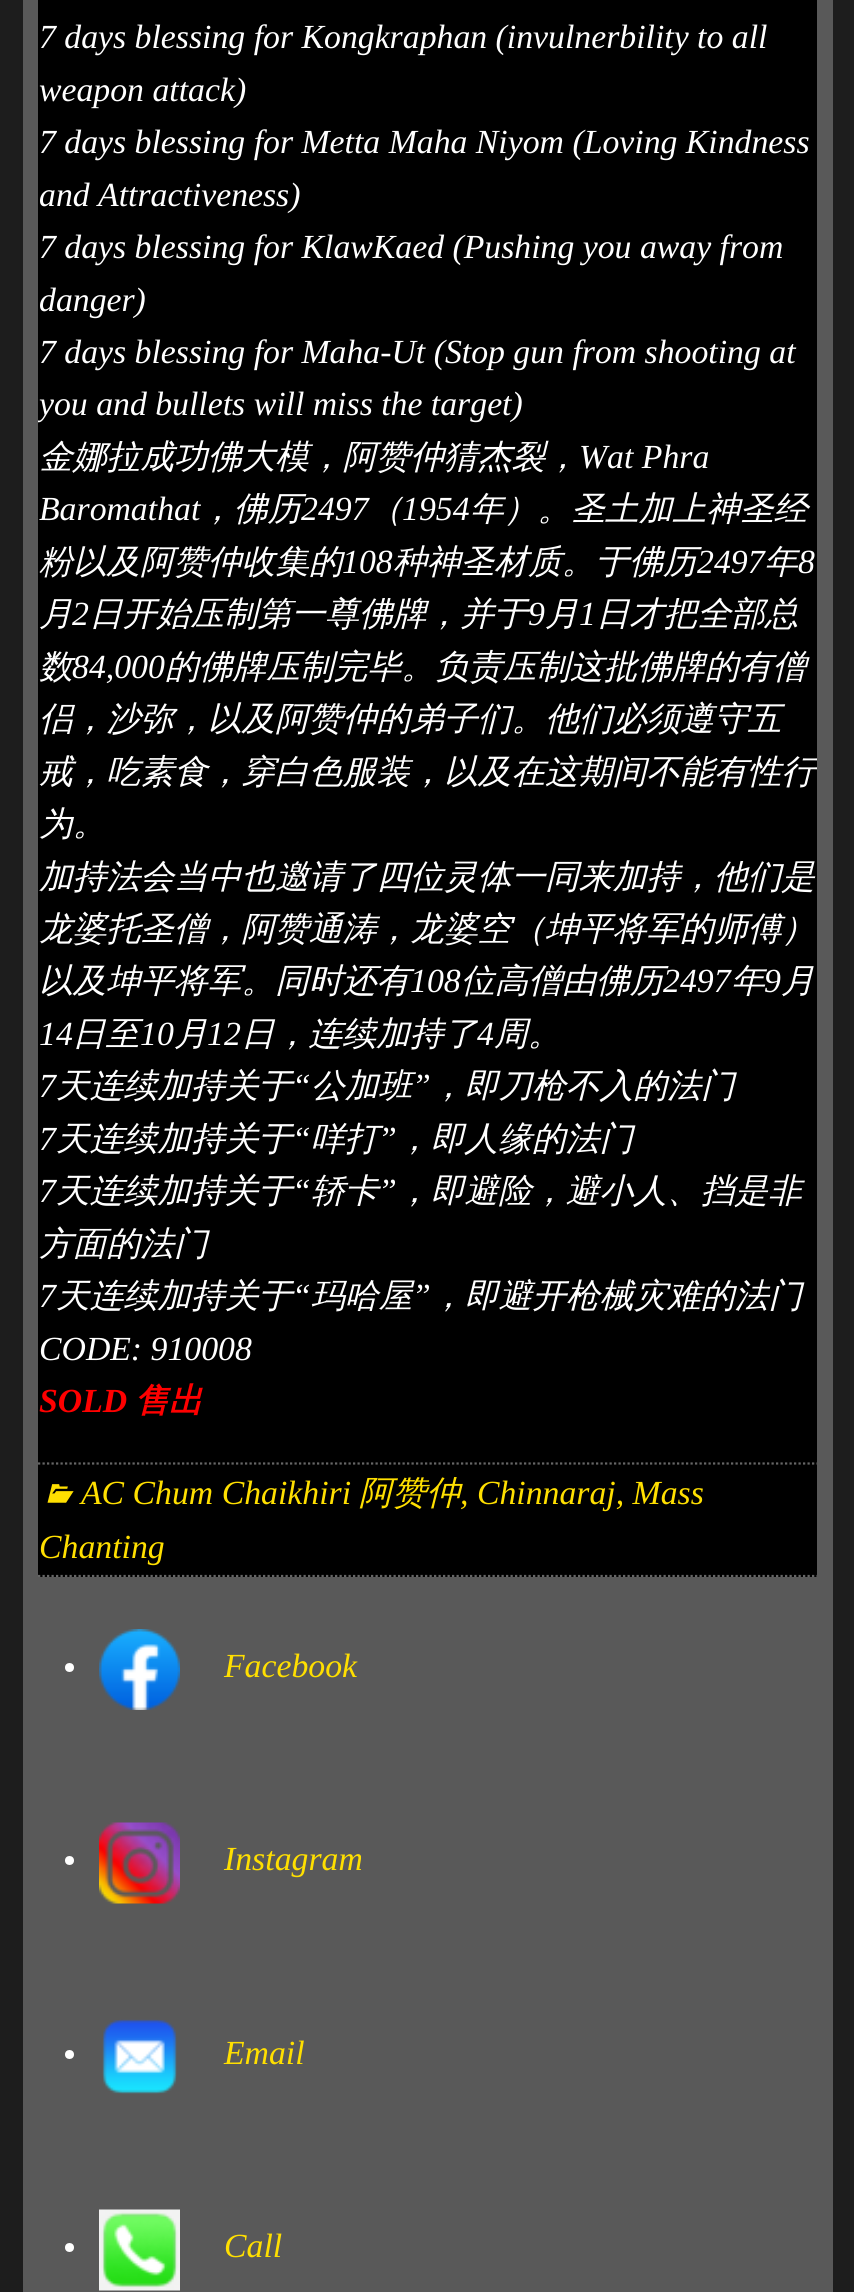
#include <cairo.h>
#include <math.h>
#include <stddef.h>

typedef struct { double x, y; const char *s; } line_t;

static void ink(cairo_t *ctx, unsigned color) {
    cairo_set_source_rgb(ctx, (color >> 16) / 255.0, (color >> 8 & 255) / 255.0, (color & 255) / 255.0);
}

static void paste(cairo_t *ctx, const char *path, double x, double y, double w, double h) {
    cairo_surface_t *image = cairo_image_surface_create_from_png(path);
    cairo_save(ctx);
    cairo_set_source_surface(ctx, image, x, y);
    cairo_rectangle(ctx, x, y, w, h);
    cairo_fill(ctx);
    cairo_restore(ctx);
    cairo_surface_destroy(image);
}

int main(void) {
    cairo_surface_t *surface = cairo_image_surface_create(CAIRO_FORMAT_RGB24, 854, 2292);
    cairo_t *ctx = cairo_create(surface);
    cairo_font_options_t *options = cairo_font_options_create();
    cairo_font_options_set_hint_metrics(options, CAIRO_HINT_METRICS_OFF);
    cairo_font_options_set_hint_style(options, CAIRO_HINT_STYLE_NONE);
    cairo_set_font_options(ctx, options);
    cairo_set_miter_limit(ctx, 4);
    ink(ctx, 0x1D1D1D);
    cairo_paint(ctx);
    ink(ctx, 0x595959);
    cairo_rectangle(ctx, 23, 0, 810, 2292);
    cairo_fill(ctx);
    ink(ctx, 0x000000);
    cairo_rectangle(ctx, 38, 0, 779, 1577);
    cairo_fill(ctx);
    cairo_select_font_face(ctx, "Liberation Serif", CAIRO_FONT_SLANT_ITALIC, CAIRO_FONT_WEIGHT_NORMAL);
    cairo_set_font_size(ctx, 33.75);
    ink(ctx, 0xFFFFFF);
    {
        static const line_t items[] = {
            {39, 48, "7 days blessing for Kongkraphan (invulnerbility to all"},
            {39, 101, "weapon attack)"},
            {39, 153, "7 days blessing for Metta Maha Niyom (Loving Kindness"},
            {39, 206, "and Attractiveness)"},
            {39, 258, "7 days blessing for KlawKaed (Pushing you away from"},
            {39, 311, "danger)"},
            {39, 363, "7 days blessing for Maha-Ut (Stop gun from shooting at"},
        };
        for (size_t i = 0; i < sizeof items / sizeof *items; i++) {
            cairo_move_to(ctx, items[i].x, items[i].y);
            cairo_show_text(ctx, items[i].s);
        }
    }
    cairo_save(ctx);
    cairo_rectangle(ctx, 38, 0, 779, 1577);
    cairo_clip(ctx);
    cairo_move_to(ctx, 39, 415);
    cairo_show_text(ctx, "you and bullets will miss the target)");
    cairo_restore(ctx);
    cairo_select_font_face(ctx, "WenQuanYi Zen Hei Medium", CAIRO_FONT_SLANT_ITALIC, CAIRO_FONT_WEIGHT_NORMAL);
    cairo_move_to(ctx, 39, 468);
    cairo_show_text(ctx, "金娜拉成功佛大模，阿赞仲猜杰裂，");
    cairo_select_font_face(ctx, "Liberation Serif", CAIRO_FONT_SLANT_ITALIC, CAIRO_FONT_WEIGHT_NORMAL);
    cairo_move_to(ctx, 579, 468);
    cairo_show_text(ctx, "Wat Phra");
    cairo_move_to(ctx, 39, 520);
    cairo_show_text(ctx, "Baromathat");
    cairo_select_font_face(ctx, "WenQuanYi Zen Hei Medium", CAIRO_FONT_SLANT_ITALIC, CAIRO_FONT_WEIGHT_NORMAL);
    cairo_move_to(ctx, 200, 520);
    cairo_show_text(ctx, "，佛历");
    cairo_select_font_face(ctx, "Liberation Serif", CAIRO_FONT_SLANT_ITALIC, CAIRO_FONT_WEIGHT_NORMAL);
    cairo_move_to(ctx, 301, 520);
    cairo_show_text(ctx, "2497");
    cairo_select_font_face(ctx, "WenQuanYi Zen Hei Medium", CAIRO_FONT_SLANT_ITALIC, CAIRO_FONT_WEIGHT_NORMAL);
    cairo_move_to(ctx, 369, 520);
    cairo_show_text(ctx, "（");
    cairo_select_font_face(ctx, "Liberation Serif", CAIRO_FONT_SLANT_ITALIC, CAIRO_FONT_WEIGHT_NORMAL);
    cairo_move_to(ctx, 402, 520);
    cairo_show_text(ctx, "1954");
    cairo_select_font_face(ctx, "WenQuanYi Zen Hei Medium", CAIRO_FONT_SLANT_ITALIC, CAIRO_FONT_WEIGHT_NORMAL);
    cairo_move_to(ctx, 470, 520);
    cairo_show_text(ctx, "年）。圣土加上神圣经");
    cairo_move_to(ctx, 39, 573);
    cairo_show_text(ctx, "粉以及阿赞仲收集的");
    cairo_select_font_face(ctx, "Liberation Serif", CAIRO_FONT_SLANT_ITALIC, CAIRO_FONT_WEIGHT_NORMAL);
    cairo_move_to(ctx, 342, 573);
    cairo_show_text(ctx, "108");
    cairo_select_font_face(ctx, "WenQuanYi Zen Hei Medium", CAIRO_FONT_SLANT_ITALIC, CAIRO_FONT_WEIGHT_NORMAL);
    cairo_move_to(ctx, 393, 573);
    cairo_show_text(ctx, "种神圣材质。于佛历");
    cairo_select_font_face(ctx, "Liberation Serif", CAIRO_FONT_SLANT_ITALIC, CAIRO_FONT_WEIGHT_NORMAL);
    cairo_move_to(ctx, 697, 573);
    cairo_show_text(ctx, "2497");
    cairo_select_font_face(ctx, "WenQuanYi Zen Hei Medium", CAIRO_FONT_SLANT_ITALIC, CAIRO_FONT_WEIGHT_NORMAL);
    cairo_move_to(ctx, 764, 573);
    cairo_show_text(ctx, "年");
    cairo_select_font_face(ctx, "Liberation Serif", CAIRO_FONT_SLANT_ITALIC, CAIRO_FONT_WEIGHT_NORMAL);
    cairo_move_to(ctx, 798, 573);
    cairo_show_text(ctx, "8");
    cairo_select_font_face(ctx, "WenQuanYi Zen Hei Medium", CAIRO_FONT_SLANT_ITALIC, CAIRO_FONT_WEIGHT_NORMAL);
    cairo_move_to(ctx, 39, 625);
    cairo_show_text(ctx, "月");
    cairo_select_font_face(ctx, "Liberation Serif", CAIRO_FONT_SLANT_ITALIC, CAIRO_FONT_WEIGHT_NORMAL);
    cairo_move_to(ctx, 72, 625);
    cairo_show_text(ctx, "2");
    cairo_select_font_face(ctx, "WenQuanYi Zen Hei Medium", CAIRO_FONT_SLANT_ITALIC, CAIRO_FONT_WEIGHT_NORMAL);
    cairo_move_to(ctx, 89, 625);
    cairo_show_text(ctx, "日开始压制第一尊佛牌，并于");
    cairo_select_font_face(ctx, "Liberation Serif", CAIRO_FONT_SLANT_ITALIC, CAIRO_FONT_WEIGHT_NORMAL);
    cairo_move_to(ctx, 528, 625);
    cairo_show_text(ctx, "9");
    cairo_select_font_face(ctx, "WenQuanYi Zen Hei Medium", CAIRO_FONT_SLANT_ITALIC, CAIRO_FONT_WEIGHT_NORMAL);
    cairo_move_to(ctx, 545, 625);
    cairo_show_text(ctx, "月");
    cairo_select_font_face(ctx, "Liberation Serif", CAIRO_FONT_SLANT_ITALIC, CAIRO_FONT_WEIGHT_NORMAL);
    cairo_move_to(ctx, 579, 625);
    cairo_show_text(ctx, "1");
    cairo_select_font_face(ctx, "WenQuanYi Zen Hei Medium", CAIRO_FONT_SLANT_ITALIC, CAIRO_FONT_WEIGHT_NORMAL);
    cairo_move_to(ctx, 596, 625);
    cairo_show_text(ctx, "日才把全部总");
    cairo_move_to(ctx, 39, 678);
    cairo_show_text(ctx, "数");
    cairo_select_font_face(ctx, "Liberation Serif", CAIRO_FONT_SLANT_ITALIC, CAIRO_FONT_WEIGHT_NORMAL);
    cairo_move_to(ctx, 72, 678);
    cairo_show_text(ctx, "84,000");
    cairo_select_font_face(ctx, "WenQuanYi Zen Hei Medium", CAIRO_FONT_SLANT_ITALIC, CAIRO_FONT_WEIGHT_NORMAL);
    cairo_move_to(ctx, 165, 678);
    cairo_show_text(ctx, "的佛牌压制完毕。负责压制这批佛牌的有僧");
    cairo_move_to(ctx, 39, 730);
    cairo_show_text(ctx, "侣，沙弥，以及阿赞仲的弟子们。他们必须遵守五");
    cairo_save(ctx);
    cairo_rectangle(ctx, 38, 0, 779, 1577);
    cairo_clip(ctx);
    cairo_move_to(ctx, 39, 783);
    cairo_show_text(ctx, "戒，吃素食，穿白色服装，以及在这期间不能有性行");
    cairo_restore(ctx);
    {
        static const line_t items[] = {
            {39, 835, "为。"},
            {39, 888, "加持法会当中也邀请了四位灵体一同来加持，他们是"},
            {39, 940, "龙婆托圣僧，阿赞通涛，龙婆空（坤平将军的师傅）"},
            {39, 992, "以及坤平将军。同时还有"},
        };
        for (size_t i = 0; i < sizeof items / sizeof *items; i++) {
            cairo_move_to(ctx, items[i].x, items[i].y);
            cairo_show_text(ctx, items[i].s);
        }
    }
    cairo_select_font_face(ctx, "Liberation Serif", CAIRO_FONT_SLANT_ITALIC, CAIRO_FONT_WEIGHT_NORMAL);
    cairo_move_to(ctx, 410, 992);
    cairo_show_text(ctx, "108");
    cairo_select_font_face(ctx, "WenQuanYi Zen Hei Medium", CAIRO_FONT_SLANT_ITALIC, CAIRO_FONT_WEIGHT_NORMAL);
    cairo_move_to(ctx, 461, 992);
    cairo_show_text(ctx, "位高僧由佛历");
    cairo_select_font_face(ctx, "Liberation Serif", CAIRO_FONT_SLANT_ITALIC, CAIRO_FONT_WEIGHT_NORMAL);
    cairo_move_to(ctx, 663, 992);
    cairo_show_text(ctx, "2497");
    cairo_select_font_face(ctx, "WenQuanYi Zen Hei Medium", CAIRO_FONT_SLANT_ITALIC, CAIRO_FONT_WEIGHT_NORMAL);
    cairo_move_to(ctx, 731, 992);
    cairo_show_text(ctx, "年");
    cairo_select_font_face(ctx, "Liberation Serif", CAIRO_FONT_SLANT_ITALIC, CAIRO_FONT_WEIGHT_NORMAL);
    cairo_move_to(ctx, 764, 992);
    cairo_show_text(ctx, "9");
    cairo_select_font_face(ctx, "WenQuanYi Zen Hei Medium", CAIRO_FONT_SLANT_ITALIC, CAIRO_FONT_WEIGHT_NORMAL);
    cairo_move_to(ctx, 781, 992);
    cairo_show_text(ctx, "月");
    cairo_select_font_face(ctx, "Liberation Serif", CAIRO_FONT_SLANT_ITALIC, CAIRO_FONT_WEIGHT_NORMAL);
    cairo_move_to(ctx, 39, 1045);
    cairo_show_text(ctx, "14");
    cairo_select_font_face(ctx, "WenQuanYi Zen Hei Medium", CAIRO_FONT_SLANT_ITALIC, CAIRO_FONT_WEIGHT_NORMAL);
    cairo_move_to(ctx, 72, 1045);
    cairo_show_text(ctx, "日至");
    cairo_select_font_face(ctx, "Liberation Serif", CAIRO_FONT_SLANT_ITALIC, CAIRO_FONT_WEIGHT_NORMAL);
    cairo_move_to(ctx, 140, 1045);
    cairo_show_text(ctx, "10");
    cairo_select_font_face(ctx, "WenQuanYi Zen Hei Medium", CAIRO_FONT_SLANT_ITALIC, CAIRO_FONT_WEIGHT_NORMAL);
    cairo_move_to(ctx, 174, 1045);
    cairo_show_text(ctx, "月");
    cairo_select_font_face(ctx, "Liberation Serif", CAIRO_FONT_SLANT_ITALIC, CAIRO_FONT_WEIGHT_NORMAL);
    cairo_move_to(ctx, 207, 1045);
    cairo_show_text(ctx, "12");
    cairo_select_font_face(ctx, "WenQuanYi Zen Hei Medium", CAIRO_FONT_SLANT_ITALIC, CAIRO_FONT_WEIGHT_NORMAL);
    cairo_move_to(ctx, 241, 1045);
    cairo_show_text(ctx, "日，连续加持了");
    cairo_select_font_face(ctx, "Liberation Serif", CAIRO_FONT_SLANT_ITALIC, CAIRO_FONT_WEIGHT_NORMAL);
    cairo_move_to(ctx, 477, 1045);
    cairo_show_text(ctx, "4");
    cairo_select_font_face(ctx, "WenQuanYi Zen Hei Medium", CAIRO_FONT_SLANT_ITALIC, CAIRO_FONT_WEIGHT_NORMAL);
    cairo_move_to(ctx, 494, 1045);
    cairo_show_text(ctx, "周。");
    cairo_select_font_face(ctx, "Liberation Serif", CAIRO_FONT_SLANT_ITALIC, CAIRO_FONT_WEIGHT_NORMAL);
    cairo_move_to(ctx, 39, 1097);
    cairo_show_text(ctx, "7");
    cairo_select_font_face(ctx, "WenQuanYi Zen Hei Medium", CAIRO_FONT_SLANT_ITALIC, CAIRO_FONT_WEIGHT_NORMAL);
    cairo_move_to(ctx, 56, 1097);
    cairo_show_text(ctx, "天连续加持关于");
    cairo_select_font_face(ctx, "Liberation Serif", CAIRO_FONT_SLANT_ITALIC, CAIRO_FONT_WEIGHT_NORMAL);
    cairo_move_to(ctx, 292, 1097);
    cairo_show_text(ctx, "“");
    cairo_select_font_face(ctx, "WenQuanYi Zen Hei Medium", CAIRO_FONT_SLANT_ITALIC, CAIRO_FONT_WEIGHT_NORMAL);
    cairo_move_to(ctx, 311, 1097);
    cairo_show_text(ctx, "公加班");
    cairo_select_font_face(ctx, "Liberation Serif", CAIRO_FONT_SLANT_ITALIC, CAIRO_FONT_WEIGHT_NORMAL);
    cairo_move_to(ctx, 412, 1097);
    cairo_show_text(ctx, "”");
    cairo_select_font_face(ctx, "WenQuanYi Zen Hei Medium", CAIRO_FONT_SLANT_ITALIC, CAIRO_FONT_WEIGHT_NORMAL);
    cairo_move_to(ctx, 431, 1097);
    cairo_show_text(ctx, "，即刀枪不入的法门");
    cairo_select_font_face(ctx, "Liberation Serif", CAIRO_FONT_SLANT_ITALIC, CAIRO_FONT_WEIGHT_NORMAL);
    cairo_move_to(ctx, 39, 1150);
    cairo_show_text(ctx, "7");
    cairo_select_font_face(ctx, "WenQuanYi Zen Hei Medium", CAIRO_FONT_SLANT_ITALIC, CAIRO_FONT_WEIGHT_NORMAL);
    cairo_move_to(ctx, 56, 1150);
    cairo_show_text(ctx, "天连续加持关于");
    cairo_select_font_face(ctx, "Liberation Serif", CAIRO_FONT_SLANT_ITALIC, CAIRO_FONT_WEIGHT_NORMAL);
    cairo_move_to(ctx, 292, 1150);
    cairo_show_text(ctx, "“");
    cairo_select_font_face(ctx, "WenQuanYi Zen Hei Medium", CAIRO_FONT_SLANT_ITALIC, CAIRO_FONT_WEIGHT_NORMAL);
    cairo_move_to(ctx, 311, 1150);
    cairo_show_text(ctx, "咩打");
    cairo_select_font_face(ctx, "Liberation Serif", CAIRO_FONT_SLANT_ITALIC, CAIRO_FONT_WEIGHT_NORMAL);
    cairo_move_to(ctx, 378, 1150);
    cairo_show_text(ctx, "”");
    cairo_select_font_face(ctx, "WenQuanYi Zen Hei Medium", CAIRO_FONT_SLANT_ITALIC, CAIRO_FONT_WEIGHT_NORMAL);
    cairo_move_to(ctx, 397, 1150);
    cairo_show_text(ctx, "，即人缘的法门");
    cairo_select_font_face(ctx, "Liberation Serif", CAIRO_FONT_SLANT_ITALIC, CAIRO_FONT_WEIGHT_NORMAL);
    cairo_move_to(ctx, 39, 1202);
    cairo_show_text(ctx, "7");
    cairo_select_font_face(ctx, "WenQuanYi Zen Hei Medium", CAIRO_FONT_SLANT_ITALIC, CAIRO_FONT_WEIGHT_NORMAL);
    cairo_move_to(ctx, 56, 1202);
    cairo_show_text(ctx, "天连续加持关于");
    cairo_select_font_face(ctx, "Liberation Serif", CAIRO_FONT_SLANT_ITALIC, CAIRO_FONT_WEIGHT_NORMAL);
    cairo_move_to(ctx, 292, 1202);
    cairo_show_text(ctx, "“");
    cairo_select_font_face(ctx, "WenQuanYi Zen Hei Medium", CAIRO_FONT_SLANT_ITALIC, CAIRO_FONT_WEIGHT_NORMAL);
    cairo_move_to(ctx, 311, 1202);
    cairo_show_text(ctx, "轿卡");
    cairo_select_font_face(ctx, "Liberation Serif", CAIRO_FONT_SLANT_ITALIC, CAIRO_FONT_WEIGHT_NORMAL);
    cairo_move_to(ctx, 378, 1202);
    cairo_show_text(ctx, "”");
    cairo_select_font_face(ctx, "WenQuanYi Zen Hei Medium", CAIRO_FONT_SLANT_ITALIC, CAIRO_FONT_WEIGHT_NORMAL);
    cairo_move_to(ctx, 397, 1202);
    cairo_show_text(ctx, "，即避险，避小人、挡是非");
    cairo_move_to(ctx, 39, 1255);
    cairo_show_text(ctx, "方面的法门");
    cairo_select_font_face(ctx, "Liberation Serif", CAIRO_FONT_SLANT_ITALIC, CAIRO_FONT_WEIGHT_NORMAL);
    cairo_move_to(ctx, 39, 1307);
    cairo_show_text(ctx, "7");
    cairo_select_font_face(ctx, "WenQuanYi Zen Hei Medium", CAIRO_FONT_SLANT_ITALIC, CAIRO_FONT_WEIGHT_NORMAL);
    cairo_move_to(ctx, 56, 1307);
    cairo_show_text(ctx, "天连续加持关于");
    cairo_select_font_face(ctx, "Liberation Serif", CAIRO_FONT_SLANT_ITALIC, CAIRO_FONT_WEIGHT_NORMAL);
    cairo_move_to(ctx, 292, 1307);
    cairo_show_text(ctx, "“");
    cairo_select_font_face(ctx, "WenQuanYi Zen Hei Medium", CAIRO_FONT_SLANT_ITALIC, CAIRO_FONT_WEIGHT_NORMAL);
    cairo_move_to(ctx, 311, 1307);
    cairo_show_text(ctx, "玛哈屋");
    cairo_select_font_face(ctx, "Liberation Serif", CAIRO_FONT_SLANT_ITALIC, CAIRO_FONT_WEIGHT_NORMAL);
    cairo_move_to(ctx, 412, 1307);
    cairo_show_text(ctx, "”");
    cairo_select_font_face(ctx, "WenQuanYi Zen Hei Medium", CAIRO_FONT_SLANT_ITALIC, CAIRO_FONT_WEIGHT_NORMAL);
    cairo_move_to(ctx, 431, 1307);
    cairo_show_text(ctx, "，即避开枪械灾难的法门");
    cairo_select_font_face(ctx, "Liberation Serif", CAIRO_FONT_SLANT_ITALIC, CAIRO_FONT_WEIGHT_NORMAL);
    cairo_move_to(ctx, 39, 1360);
    cairo_show_text(ctx, "CODE: 910008");
    cairo_select_font_face(ctx, "Liberation Serif", CAIRO_FONT_SLANT_ITALIC, CAIRO_FONT_WEIGHT_BOLD);
    ink(ctx, 0xFF0000);
    cairo_move_to(ctx, 39, 1412);
    cairo_show_text(ctx, "SOLD");
    cairo_select_font_face(ctx, "WenQuanYi Zen Hei", CAIRO_FONT_SLANT_ITALIC, CAIRO_FONT_WEIGHT_BOLD);
    cairo_move_to(ctx, 135, 1412);
    cairo_show_text(ctx, "售出");
    cairo_new_path(ctx);
    cairo_move_to(ctx, 38, 1463.5);
    cairo_line_to(ctx, 817, 1463.5);
    ink(ctx, 0x666666);
    cairo_set_line_width(ctx, 2.2);
    cairo_set_dash(ctx, (double[]){2.25, 2.25}, 2, 0);
    cairo_stroke(ctx);
    cairo_save(ctx);
    cairo_rectangle(ctx, 38, 0, 779, 1577);
    cairo_clip(ctx);
    cairo_new_path(ctx);
    cairo_move_to(ctx, 38, 1576);
    cairo_line_to(ctx, 817, 1576);
    cairo_stroke(ctx);
    cairo_restore(ctx);
    paste(ctx, "media/1.png", 47, 1484, 27, 19);
    cairo_select_font_face(ctx, "Liberation Serif", CAIRO_FONT_SLANT_ITALIC, CAIRO_FONT_WEIGHT_NORMAL);
    ink(ctx, 0xFFDF00);
    cairo_move_to(ctx, 81, 1504);
    cairo_show_text(ctx, "AC Chum Chaikhiri");
    cairo_select_font_face(ctx, "WenQuanYi Zen Hei Medium", CAIRO_FONT_SLANT_ITALIC, CAIRO_FONT_WEIGHT_NORMAL);
    cairo_move_to(ctx, 359, 1504);
    cairo_show_text(ctx, "阿赞仲");
    cairo_select_font_face(ctx, "Liberation Serif", CAIRO_FONT_SLANT_ITALIC, CAIRO_FONT_WEIGHT_NORMAL);
    cairo_move_to(ctx, 460, 1504);
    cairo_show_text(ctx, ", Chinnaraj, Mass");
    cairo_move_to(ctx, 39, 1558);
    cairo_show_text(ctx, "Chanting");
    ink(ctx, 0xFFFFFF);
    cairo_new_path(ctx);
    cairo_arc(ctx, 69.5, 1667.5, 4.5, 0, 2 * M_PI);
    cairo_fill(ctx);
    paste(ctx, "media/2.png", 99, 1629, 81, 81);
    ink(ctx, 0xFFDF00);
    cairo_move_to(ctx, 224, 1677);
    cairo_show_text(ctx, "Facebook");
    ink(ctx, 0xFFFFFF);
    cairo_new_path(ctx);
    cairo_arc(ctx, 69.5, 1860.5, 4.5, 0, 2 * M_PI);
    cairo_fill(ctx);
    paste(ctx, "media/3.png", 99, 1822, 81, 82);
    ink(ctx, 0xFFDF00);
    cairo_move_to(ctx, 224, 1870);
    cairo_show_text(ctx, "Instagram");
    ink(ctx, 0xFFFFFF);
    cairo_new_path(ctx);
    cairo_arc(ctx, 69.5, 2054.5, 4.5, 0, 2 * M_PI);
    cairo_fill(ctx);
    paste(ctx, "media/4.png", 102, 2019, 75, 75);
    ink(ctx, 0xFFDF00);
    cairo_move_to(ctx, 224, 2064);
    cairo_show_text(ctx, "Email");
    ink(ctx, 0xFFFFFF);
    cairo_new_path(ctx);
    cairo_arc(ctx, 69.5, 2247.5, 4.5, 0, 2 * M_PI);
    cairo_fill(ctx);
    paste(ctx, "media/5.png", 99, 2209, 81, 82);
    ink(ctx, 0xFFDF00);
    cairo_move_to(ctx, 224, 2257);
    cairo_show_text(ctx, "Call");
    cairo_surface_write_to_png(surface, "image.png");
    cairo_font_options_destroy(options);
    cairo_destroy(ctx);
    cairo_surface_destroy(surface);
    return 0;
}
